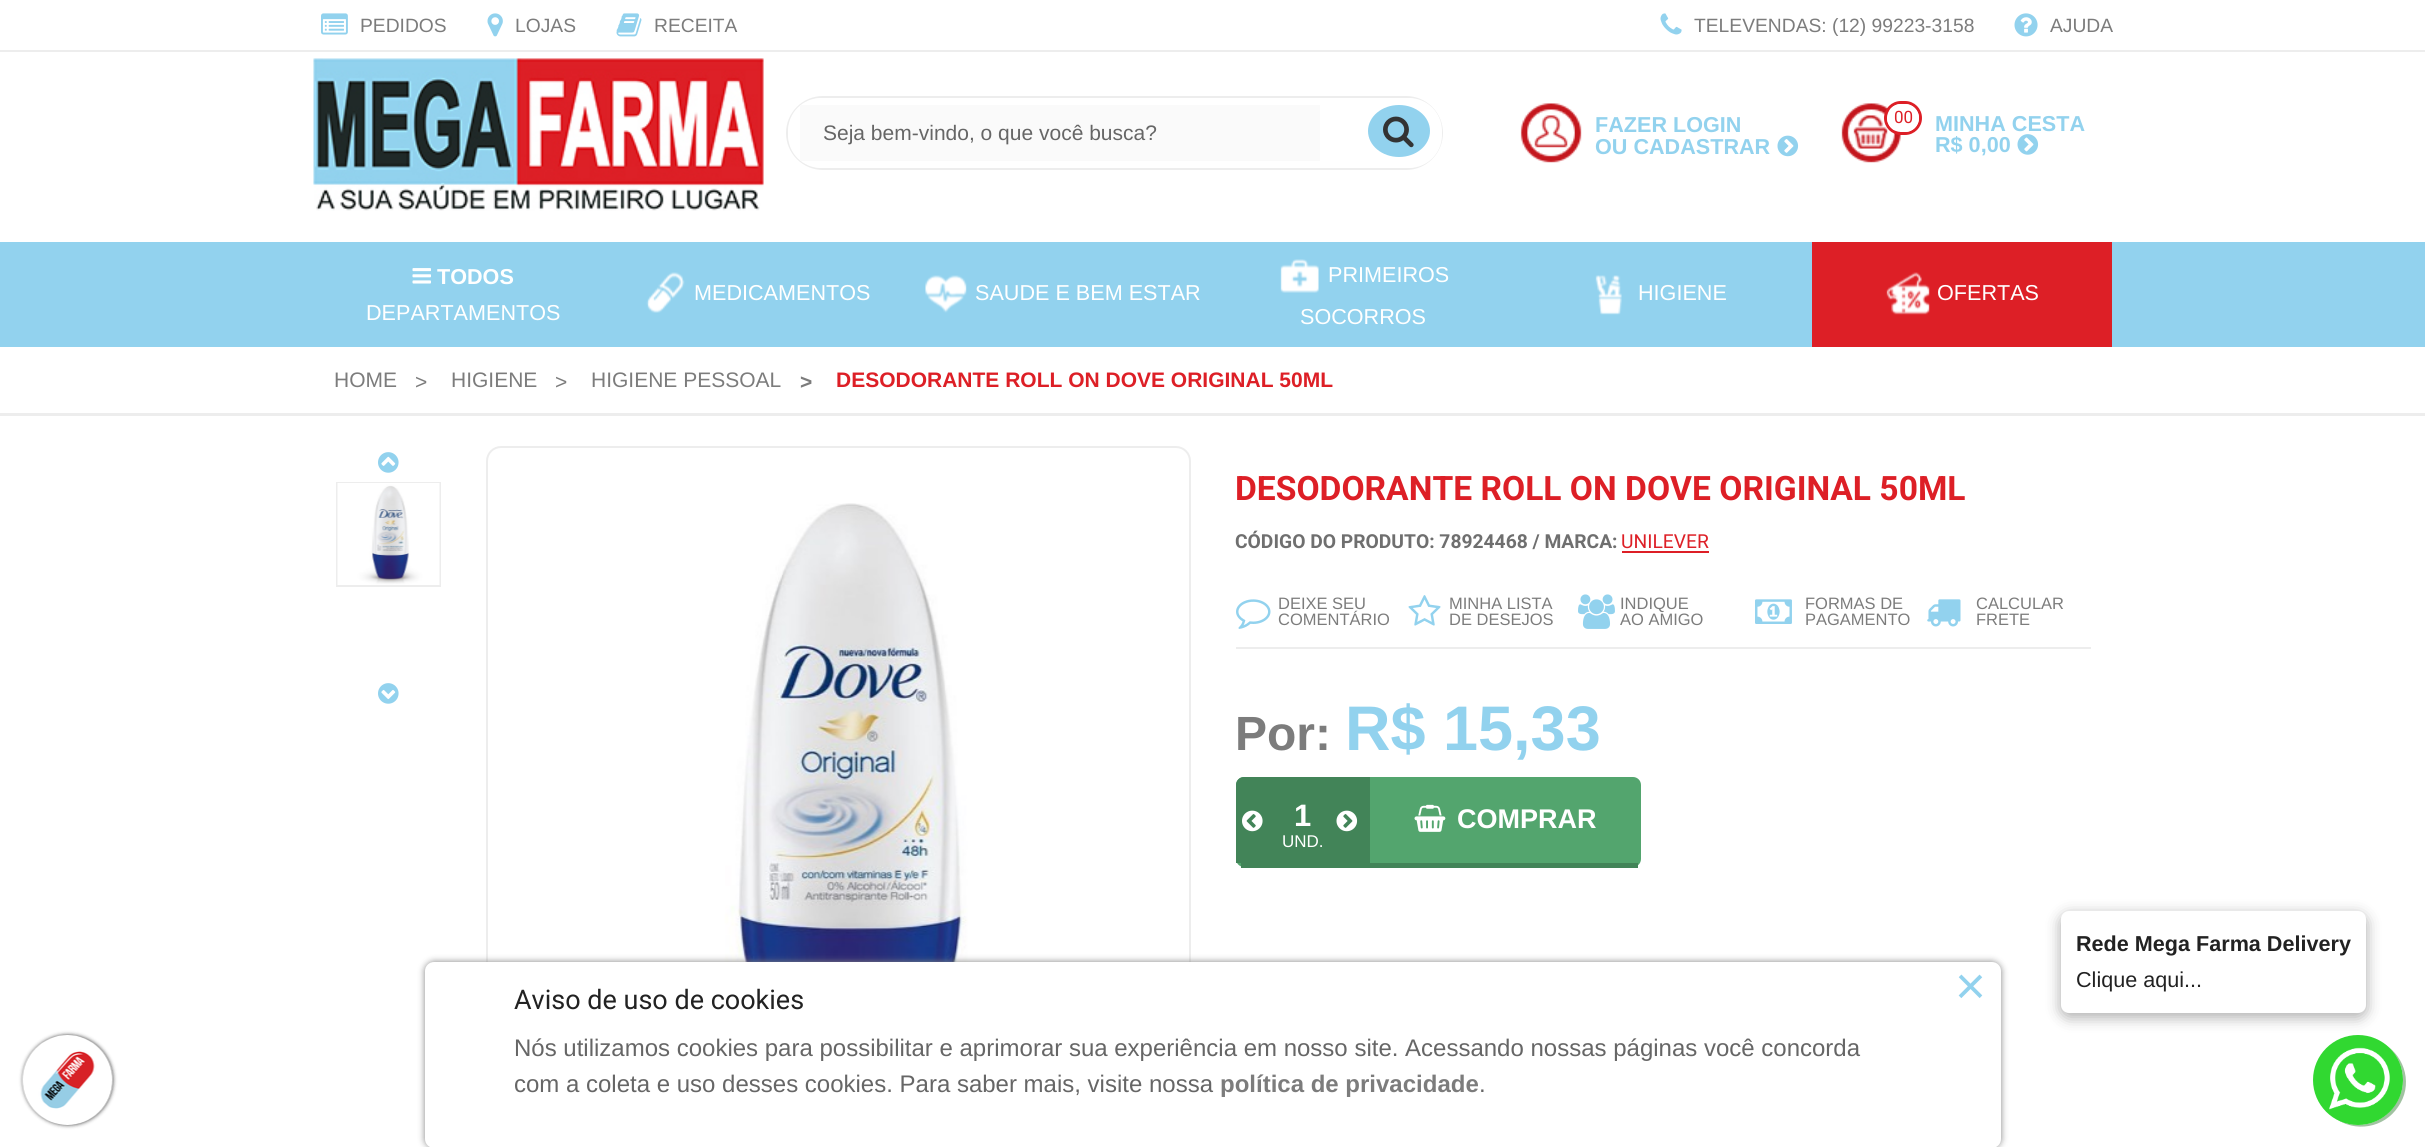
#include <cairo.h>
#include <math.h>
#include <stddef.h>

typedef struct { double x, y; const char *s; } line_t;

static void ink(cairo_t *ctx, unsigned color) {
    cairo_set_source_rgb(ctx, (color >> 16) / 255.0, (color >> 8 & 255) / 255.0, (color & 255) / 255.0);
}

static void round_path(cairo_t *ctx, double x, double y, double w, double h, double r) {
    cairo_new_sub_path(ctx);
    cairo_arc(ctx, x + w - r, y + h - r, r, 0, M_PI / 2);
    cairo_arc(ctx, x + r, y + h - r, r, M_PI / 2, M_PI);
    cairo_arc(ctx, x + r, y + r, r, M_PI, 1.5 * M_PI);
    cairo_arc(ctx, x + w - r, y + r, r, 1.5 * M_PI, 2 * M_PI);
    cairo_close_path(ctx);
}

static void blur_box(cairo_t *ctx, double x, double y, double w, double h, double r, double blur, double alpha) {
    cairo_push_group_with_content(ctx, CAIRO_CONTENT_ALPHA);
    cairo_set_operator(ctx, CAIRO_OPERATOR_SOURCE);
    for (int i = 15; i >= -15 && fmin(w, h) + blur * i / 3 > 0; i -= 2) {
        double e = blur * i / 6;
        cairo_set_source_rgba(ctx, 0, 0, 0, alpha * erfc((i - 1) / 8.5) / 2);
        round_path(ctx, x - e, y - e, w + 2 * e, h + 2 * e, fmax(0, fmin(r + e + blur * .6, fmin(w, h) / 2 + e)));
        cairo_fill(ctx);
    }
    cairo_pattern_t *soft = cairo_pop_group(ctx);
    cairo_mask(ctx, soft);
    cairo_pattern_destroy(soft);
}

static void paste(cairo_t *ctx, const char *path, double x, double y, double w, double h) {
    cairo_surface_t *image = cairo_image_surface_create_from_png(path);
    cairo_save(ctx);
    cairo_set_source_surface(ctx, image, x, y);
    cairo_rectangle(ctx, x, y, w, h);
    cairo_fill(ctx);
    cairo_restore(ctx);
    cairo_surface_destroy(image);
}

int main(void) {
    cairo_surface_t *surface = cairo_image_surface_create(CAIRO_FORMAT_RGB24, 2425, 1147);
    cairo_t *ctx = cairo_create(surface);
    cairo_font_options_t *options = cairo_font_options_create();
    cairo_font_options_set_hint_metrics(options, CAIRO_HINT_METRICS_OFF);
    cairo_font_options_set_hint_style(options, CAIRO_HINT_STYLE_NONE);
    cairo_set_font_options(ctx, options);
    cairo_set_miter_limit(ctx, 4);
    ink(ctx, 0xFFFFFF);
    cairo_paint(ctx);
    ink(ctx, 0x000000);
    blur_box(ctx, 23, 1035, 90, 90, 45, 2, 0.75);
    paste(ctx, "media/1.png", 22, 1035, 91, 90);
    paste(ctx, "media/2.png", 321, 13, 27, 22);
    cairo_select_font_face(ctx, "Liberation Sans", CAIRO_FONT_SLANT_NORMAL, CAIRO_FONT_WEIGHT_NORMAL);
    cairo_set_font_size(ctx, 19.25);
    ink(ctx, 0x7C7C7C);
    cairo_move_to(ctx, 360, 32);
    cairo_show_text(ctx, "PEDIDOS");
    paste(ctx, "media/3.png", 487, 13, 16, 24);
    cairo_move_to(ctx, 515, 32);
    cairo_show_text(ctx, "LOJAS");
    paste(ctx, "media/4.png", 616, 13, 26, 24);
    cairo_move_to(ctx, 654, 32);
    cairo_show_text(ctx, "RECEITA");
    paste(ctx, "media/5.png", 1660, 13, 22, 22);
    cairo_move_to(ctx, 1694, 32);
    cairo_show_text(ctx, "TELEVENDAS: (12) 99223-3158");
    paste(ctx, "media/6.png", 2014, 13, 24, 24);
    cairo_move_to(ctx, 2050, 32);
    cairo_show_text(ctx, "AJUDA");
    ink(ctx, 0x000000);
    blur_box(ctx, 2061, 915, 305, 102, 8, 7.5, 0.34);
    ink(ctx, 0xFFFFFF);
    round_path(ctx, 2061, 911, 305, 102, 8);
    cairo_fill(ctx);
    cairo_select_font_face(ctx, "Liberation Sans", CAIRO_FONT_SLANT_NORMAL, CAIRO_FONT_WEIGHT_BOLD);
    cairo_set_font_size(ctx, 21.6);
    ink(ctx, 0x222222);
    cairo_move_to(ctx, 2076, 951);
    cairo_show_text(ctx, "Rede Mega Farma Delivery");
    cairo_select_font_face(ctx, "Liberation Sans", CAIRO_FONT_SLANT_NORMAL, CAIRO_FONT_WEIGHT_NORMAL);
    cairo_move_to(ctx, 2076, 987);
    cairo_show_text(ctx, "Clique aqui...");
    ink(ctx, 0xA1C2A1);
    cairo_new_path(ctx);
    cairo_move_to(ctx, 2335, 1118);
    cairo_curve_to(ctx, 2355, 1133, 2384, 1128, 2398, 1107);
    cairo_curve_to(ctx, 2413, 1086, 2406, 1057, 2384, 1044);
    cairo_curve_to(ctx, 2404, 1058, 2409, 1085, 2395, 1105);
    cairo_curve_to(ctx, 2382, 1125, 2355, 1131, 2335, 1118);
    cairo_close_path(ctx);
    cairo_fill(ctx);
    ink(ctx, 0x31D831);
    cairo_arc(ctx, 2358, 1080, 45, 0, 2 * M_PI);
    cairo_fill(ctx);
    paste(ctx, "media/7.png", 2329, 1047, 61, 63);
    ink(ctx, 0xEDEDED);
    cairo_rectangle(ctx, 0, 50, 2425, 2);
    cairo_fill(ctx);
    paste(ctx, "media/8.png", 313, 58, 451, 153);
    round_path(ctx, 787, 97, 655, 72, 36);
    cairo_stroke(ctx);
    ink(ctx, 0xFFFFFF);
    round_path(ctx, 788, 98, 654, 70, 33);
    cairo_fill(ctx);
    ink(ctx, 0xFAFAFA);
    cairo_rectangle(ctx, 800, 105, 520, 56);
    cairo_fill(ctx);
    cairo_set_font_size(ctx, 21);
    ink(ctx, 0x666666);
    cairo_move_to(ctx, 823, 140);
    cairo_show_text(ctx, "Seja bem-vindo, o que você busca?");
    ink(ctx, 0x92D2EE);
    cairo_new_path(ctx);
    cairo_move_to(ctx, 1399, 105);
    cairo_curve_to(ctx, 1416, 105, 1430, 116.5, 1430, 131);
    cairo_curve_to(ctx, 1430, 145.5, 1416, 157, 1399, 157);
    cairo_curve_to(ctx, 1382, 157, 1368, 145.5, 1368, 131);
    cairo_curve_to(ctx, 1368, 116.5, 1382, 105, 1399, 105);
    cairo_close_path(ctx);
    cairo_fill(ctx);
    paste(ctx, "media/9.png", 1383, 116, 31, 32);
    paste(ctx, "media/10.png", 1520, 103, 62, 60);
    cairo_select_font_face(ctx, "Liberation Sans", CAIRO_FONT_SLANT_NORMAL, CAIRO_FONT_WEIGHT_BOLD);
    cairo_set_font_size(ctx, 21.6);
    cairo_move_to(ctx, 1595, 132);
    cairo_show_text(ctx, "FAZER LOGIN");
    cairo_move_to(ctx, 1595, 154);
    cairo_show_text(ctx, "OU CADASTRAR");
    paste(ctx, "media/11.png", 1777, 135, 22, 22);
    paste(ctx, "media/12.png", 1841, 103, 60, 60);
    round_path(ctx, 1885.5, 102.5, 35, 31, 15.5);
    ink(ctx, 0xDD1F26);
    cairo_set_line_width(ctx, 3);
    cairo_stroke(ctx);
    ink(ctx, 0xFFFFFF);
    round_path(ctx, 1888, 105, 30, 26, 13);
    cairo_fill_preserve(ctx);
    cairo_set_line_width(ctx, 2);
    cairo_stroke(ctx);
    cairo_select_font_face(ctx, "Roboto", CAIRO_FONT_SLANT_NORMAL, CAIRO_FONT_WEIGHT_NORMAL);
    cairo_set_font_size(ctx, 17);
    ink(ctx, 0xDD1F26);
    cairo_move_to(ctx, 1894, 123);
    cairo_show_text(ctx, "00");
    cairo_select_font_face(ctx, "Liberation Sans", CAIRO_FONT_SLANT_NORMAL, CAIRO_FONT_WEIGHT_BOLD);
    cairo_set_font_size(ctx, 21.6);
    ink(ctx, 0x92D2EE);
    cairo_move_to(ctx, 1935, 131);
    cairo_show_text(ctx, "MINHA CESTA");
    cairo_move_to(ctx, 1935, 152);
    cairo_show_text(ctx, "R$ 0,00");
    paste(ctx, "media/13.png", 2017, 134, 22, 21);
    cairo_rectangle(ctx, 0, 242, 2425, 105);
    cairo_fill(ctx);
    paste(ctx, "media/14.png", 412, 268, 19, 16);
    ink(ctx, 0xFFFFFF);
    cairo_move_to(ctx, 437, 284);
    cairo_show_text(ctx, "TODOS");
    cairo_select_font_face(ctx, "Liberation Sans", CAIRO_FONT_SLANT_NORMAL, CAIRO_FONT_WEIGHT_NORMAL);
    cairo_move_to(ctx, 366, 320);
    cairo_show_text(ctx, "DEPARTAMENTOS");
    paste(ctx, "media/15.png", 646, 272, 39, 41);
    cairo_move_to(ctx, 694, 300);
    cairo_show_text(ctx, "MEDICAMENTOS");
    paste(ctx, "media/16.png", 925, 275, 42, 38);
    cairo_move_to(ctx, 975, 300);
    cairo_show_text(ctx, "SAUDE E BEM ESTAR");
    paste(ctx, "media/17.png", 1280, 259, 39, 34);
    cairo_move_to(ctx, 1328, 282);
    cairo_show_text(ctx, "PRIMEIROS");
    cairo_move_to(ctx, 1300, 324);
    cairo_show_text(ctx, "SOCORROS");
    paste(ctx, "media/18.png", 1595, 275, 27, 40);
    cairo_move_to(ctx, 1638, 300);
    cairo_show_text(ctx, "HIGIENE");
    ink(ctx, 0xDD1F26);
    cairo_rectangle(ctx, 1812, 242, 300, 105);
    cairo_fill(ctx);
    paste(ctx, "media/19.png", 1886, 272, 44, 43);
    ink(ctx, 0xFFFFFF);
    cairo_move_to(ctx, 1937, 300);
    cairo_show_text(ctx, "OFERTAS");
    ink(ctx, 0xEDEDED);
    cairo_rectangle(ctx, 0, 413, 2425, 3);
    cairo_fill(ctx);
    cairo_set_font_size(ctx, 21);
    ink(ctx, 0x7C7C7C);
    {
        static const line_t items[] = {
            {334, 387, "HOME"},
            {415, 389, ">"},
            {451, 387, "HIGIENE"},
            {555, 389, ">"},
            {591, 387, "HIGIENE PESSOAL"},
        };
        for (size_t i = 0; i < sizeof items / sizeof *items; i++) {
            cairo_move_to(ctx, items[i].x, items[i].y);
            cairo_show_text(ctx, items[i].s);
        }
    }
    cairo_select_font_face(ctx, "Liberation Sans", CAIRO_FONT_SLANT_NORMAL, CAIRO_FONT_WEIGHT_BOLD);
    cairo_move_to(ctx, 800, 389);
    cairo_show_text(ctx, ">");
    ink(ctx, 0xDD1F26);
    cairo_move_to(ctx, 836, 387);
    cairo_show_text(ctx, "DESODORANTE ROLL ON DOVE ORIGINAL 50ML");
    paste(ctx, "media/20.png", 378, 452, 21, 21);
    cairo_rectangle(ctx, 337, 483, 103, 103);
    ink(ctx, 0xEDEDED);
    cairo_stroke(ctx);
    paste(ctx, "media/21.png", 337, 483, 103, 102);
    paste(ctx, "media/22.png", 378, 683, 21, 21);
    round_path(ctx, 487, 447, 703, 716, 14);
    cairo_stroke(ctx);
    paste(ctx, "media/23.png", 677, 503, 475, 459);
    cairo_select_font_face(ctx, "Roboto", CAIRO_FONT_SLANT_NORMAL, CAIRO_FONT_WEIGHT_BOLD);
    cairo_set_font_size(ctx, 33.6);
    ink(ctx, 0xDD1F26);
    cairo_move_to(ctx, 1235, 500);
    cairo_show_text(ctx, "DESODORANTE ROLL ON DOVE ORIGINAL 50ML");
    cairo_set_font_size(ctx, 19.25);
    ink(ctx, 0x6F6F6F);
    cairo_move_to(ctx, 1235, 548);
    cairo_show_text(ctx, "CÓDIGO DO PRODUTO: 78924468 / MARCA:");
    cairo_select_font_face(ctx, "Roboto", CAIRO_FONT_SLANT_NORMAL, CAIRO_FONT_WEIGHT_NORMAL);
    ink(ctx, 0xDD1F26);
    cairo_move_to(ctx, 1621, 548);
    cairo_show_text(ctx, "UNILEVER");
    cairo_rectangle(ctx, 1622, 551, 87, 2);
    cairo_fill(ctx);
    ink(ctx, 0xEDEDED);
    cairo_rectangle(ctx, 1236, 647, 855, 2);
    cairo_fill(ctx);
    paste(ctx, "media/24.png", 1236, 599, 35, 30);
    cairo_select_font_face(ctx, "Liberation Sans", CAIRO_FONT_SLANT_NORMAL, CAIRO_FONT_WEIGHT_NORMAL);
    cairo_set_font_size(ctx, 16.5);
    ink(ctx, 0x7C7C7C);
    cairo_move_to(ctx, 1278, 609);
    cairo_show_text(ctx, "DEIXE SEU");
    cairo_move_to(ctx, 1278, 625);
    cairo_show_text(ctx, "COMENTÁRIO");
    paste(ctx, "media/25.png", 1408, 595, 33, 31);
    cairo_move_to(ctx, 1449, 609);
    cairo_show_text(ctx, "MINHA LISTA");
    cairo_move_to(ctx, 1449, 625);
    cairo_show_text(ctx, "DE DESEJOS");
    paste(ctx, "media/26.png", 1578, 594, 37, 35);
    cairo_move_to(ctx, 1620, 609);
    cairo_show_text(ctx, "INDIQUE");
    cairo_move_to(ctx, 1620, 625);
    cairo_show_text(ctx, "AO AMIGO");
    paste(ctx, "media/27.png", 1755, 599, 37, 25);
    cairo_move_to(ctx, 1805, 609);
    cairo_show_text(ctx, "FORMAS DE");
    cairo_move_to(ctx, 1805, 625);
    cairo_show_text(ctx, "PAGAMENTO");
    paste(ctx, "media/28.png", 1927, 599, 34, 28);
    cairo_move_to(ctx, 1976, 609);
    cairo_show_text(ctx, "CALCULAR");
    cairo_move_to(ctx, 1976, 625);
    cairo_show_text(ctx, "FRETE");
    cairo_select_font_face(ctx, "Liberation Sans", CAIRO_FONT_SLANT_NORMAL, CAIRO_FONT_WEIGHT_BOLD);
    cairo_set_font_size(ctx, 48);
    cairo_move_to(ctx, 1235, 750);
    cairo_show_text(ctx, "Por:");
    cairo_set_font_size(ctx, 63);
    ink(ctx, 0x92D2EE);
    cairo_move_to(ctx, 1345, 750);
    cairo_show_text(ctx, "R$ 15,33");
    ink(ctx, 0x53A56E);
    round_path(ctx, 1236, 777, 405, 90, 8);
    cairo_fill(ctx);
    ink(ctx, 0x428458);
    cairo_rectangle(ctx, 1241, 863, 397, 5);
    cairo_fill(ctx);
    cairo_new_path(ctx);
    cairo_move_to(ctx, 1244, 777);
    cairo_line_to(ctx, 1370, 777);
    cairo_line_to(ctx, 1370, 863);
    cairo_line_to(ctx, 1236, 863);
    cairo_line_to(ctx, 1236, 785);
    cairo_curve_to(ctx, 1236, 780.5, 1239.5, 777, 1244, 777);
    cairo_close_path(ctx);
    cairo_fill(ctx);
    paste(ctx, "media/29.png", 1242, 810, 21, 22);
    cairo_set_font_size(ctx, 31);
    ink(ctx, 0xFFFFFF);
    cairo_move_to(ctx, 1294, 826);
    cairo_show_text(ctx, "1");
    cairo_select_font_face(ctx, "Liberation Sans", CAIRO_FONT_SLANT_NORMAL, CAIRO_FONT_WEIGHT_NORMAL);
    cairo_set_font_size(ctx, 17);
    cairo_move_to(ctx, 1282, 847);
    cairo_show_text(ctx, "UND.");
    paste(ctx, "media/30.png", 1336, 810, 22, 22);
    paste(ctx, "media/31.png", 1414, 804, 32, 28);
    cairo_select_font_face(ctx, "Liberation Sans", CAIRO_FONT_SLANT_NORMAL, CAIRO_FONT_WEIGHT_BOLD);
    cairo_set_font_size(ctx, 27);
    cairo_move_to(ctx, 1457, 828);
    cairo_show_text(ctx, "COMPRAR");
    ink(ctx, 0x828282);
    blur_box(ctx, 425, 962, 1576, 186, 9, 3.5, 1);
    ink(ctx, 0xFFFFFF);
    round_path(ctx, 425, 962, 1576, 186, 9);
    cairo_fill(ctx);
    cairo_select_font_face(ctx, "Roboto", CAIRO_FONT_SLANT_NORMAL, CAIRO_FONT_WEIGHT_NORMAL);
    ink(ctx, 0x222222);
    cairo_move_to(ctx, 514, 1009);
    cairo_show_text(ctx, "Aviso de uso de cookies");
    cairo_select_font_face(ctx, "Liberation Sans", CAIRO_FONT_SLANT_NORMAL, CAIRO_FONT_WEIGHT_NORMAL);
    cairo_set_font_size(ctx, 53);
    ink(ctx, 0x92D2EE);
    cairo_move_to(ctx, 1955, 1004);
    cairo_show_text(ctx, "×");
    cairo_set_font_size(ctx, 24);
    ink(ctx, 0x666666);
    cairo_move_to(ctx, 514, 1056);
    cairo_show_text(ctx, "Nós utilizamos cookies para possibilitar e aprimorar sua experiência em nosso site. Acessando nossas páginas você concorda");
    cairo_move_to(ctx, 514, 1092);
    cairo_show_text(ctx, "com a coleta e uso desses cookies. Para saber mais, visite nossa");
    cairo_select_font_face(ctx, "Liberation Sans", CAIRO_FONT_SLANT_NORMAL, CAIRO_FONT_WEIGHT_BOLD);
    ink(ctx, 0x7C7C7C);
    cairo_move_to(ctx, 1220, 1092);
    cairo_show_text(ctx, "política de privacidade");
    cairo_select_font_face(ctx, "Liberation Sans", CAIRO_FONT_SLANT_NORMAL, CAIRO_FONT_WEIGHT_NORMAL);
    ink(ctx, 0x666666);
    cairo_move_to(ctx, 1479, 1092);
    cairo_show_text(ctx, ".");
    cairo_surface_write_to_png(surface, "image.png");
    cairo_font_options_destroy(options);
    cairo_destroy(ctx);
    cairo_surface_destroy(surface);
    return 0;
}
